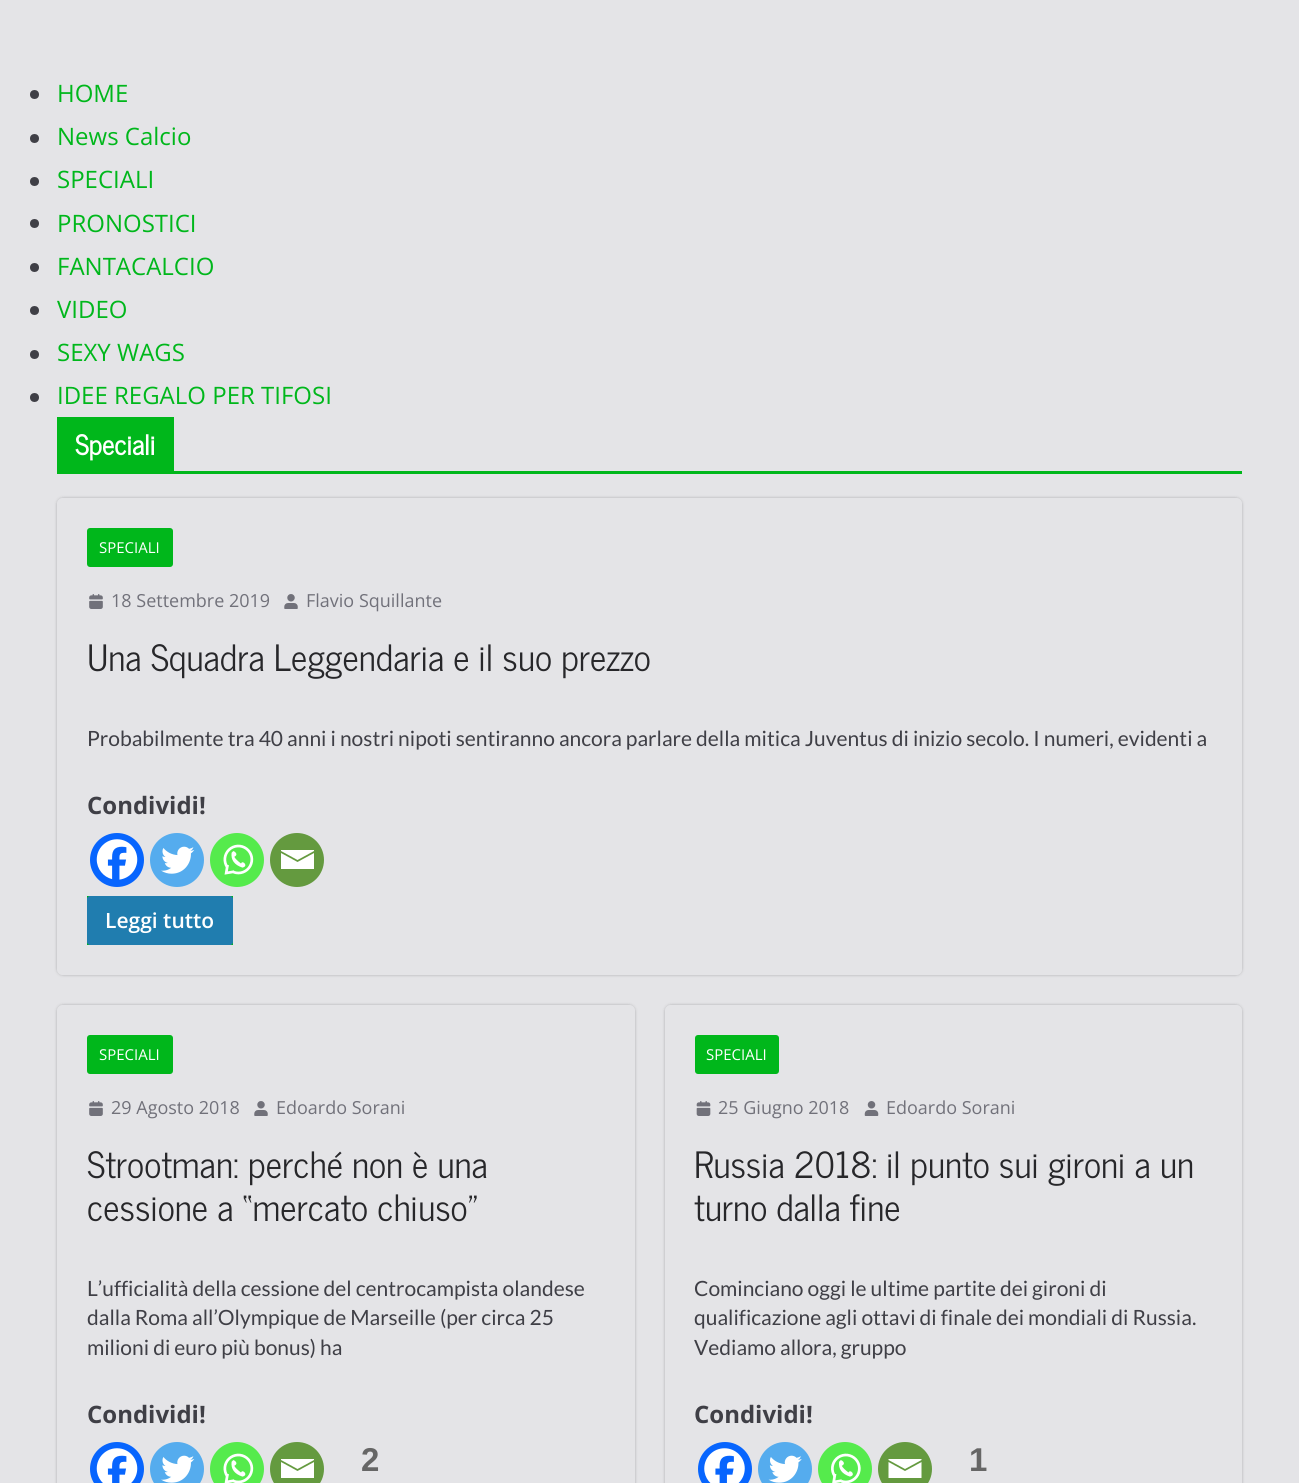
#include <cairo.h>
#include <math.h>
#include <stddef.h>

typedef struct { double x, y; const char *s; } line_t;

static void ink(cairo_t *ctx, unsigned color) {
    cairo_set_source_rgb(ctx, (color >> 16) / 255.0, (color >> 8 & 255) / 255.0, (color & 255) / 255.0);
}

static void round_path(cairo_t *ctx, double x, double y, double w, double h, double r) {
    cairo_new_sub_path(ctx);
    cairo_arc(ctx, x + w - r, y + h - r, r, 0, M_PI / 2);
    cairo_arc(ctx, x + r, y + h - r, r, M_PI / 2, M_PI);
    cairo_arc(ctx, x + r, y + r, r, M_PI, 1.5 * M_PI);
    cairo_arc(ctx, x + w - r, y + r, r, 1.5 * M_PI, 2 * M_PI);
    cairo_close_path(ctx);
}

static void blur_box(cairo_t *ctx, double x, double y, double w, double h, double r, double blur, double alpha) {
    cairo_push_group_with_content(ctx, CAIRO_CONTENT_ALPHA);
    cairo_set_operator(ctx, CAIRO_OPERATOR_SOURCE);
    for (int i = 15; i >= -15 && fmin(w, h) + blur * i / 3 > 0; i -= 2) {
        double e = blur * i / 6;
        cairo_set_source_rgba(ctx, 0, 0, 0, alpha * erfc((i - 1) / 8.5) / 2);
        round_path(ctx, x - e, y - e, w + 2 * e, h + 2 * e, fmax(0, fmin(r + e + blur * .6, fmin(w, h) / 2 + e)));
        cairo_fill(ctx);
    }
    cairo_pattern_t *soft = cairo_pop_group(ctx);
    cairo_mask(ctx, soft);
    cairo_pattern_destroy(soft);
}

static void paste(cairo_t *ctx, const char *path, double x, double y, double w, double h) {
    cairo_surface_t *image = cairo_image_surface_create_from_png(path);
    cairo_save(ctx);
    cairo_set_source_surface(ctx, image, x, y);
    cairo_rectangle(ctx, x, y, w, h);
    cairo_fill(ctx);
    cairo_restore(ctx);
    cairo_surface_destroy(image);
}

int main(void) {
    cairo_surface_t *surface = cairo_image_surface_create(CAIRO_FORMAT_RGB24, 1299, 1483);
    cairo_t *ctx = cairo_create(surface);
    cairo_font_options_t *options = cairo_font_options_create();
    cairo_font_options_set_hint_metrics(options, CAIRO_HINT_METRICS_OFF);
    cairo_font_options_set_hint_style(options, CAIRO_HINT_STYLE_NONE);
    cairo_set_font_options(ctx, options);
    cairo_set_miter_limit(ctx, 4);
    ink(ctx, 0xE4E4E7);
    cairo_paint(ctx);
    ink(ctx, 0x3F3F46);
    cairo_arc(ctx, 34.5, 94.5, 4.5, 0, 2 * M_PI);
    cairo_fill(ctx);
    cairo_select_font_face(ctx, "Open Sans", CAIRO_FONT_SLANT_NORMAL, CAIRO_FONT_WEIGHT_NORMAL);
    cairo_set_font_size(ctx, 24);
    ink(ctx, 0x00B71B);
    cairo_move_to(ctx, 57, 102);
    cairo_show_text(ctx, "HOME");
    ink(ctx, 0x3F3F46);
    cairo_new_path(ctx);
    cairo_arc(ctx, 34.5, 138.5, 4.5, 0, 2 * M_PI);
    cairo_fill(ctx);
    ink(ctx, 0x00B71B);
    cairo_move_to(ctx, 57, 145);
    cairo_show_text(ctx, "News Calcio");
    ink(ctx, 0x3F3F46);
    cairo_new_path(ctx);
    cairo_arc(ctx, 34.5, 181.5, 4.5, 0, 2 * M_PI);
    cairo_fill(ctx);
    ink(ctx, 0x00B71B);
    cairo_move_to(ctx, 57, 188);
    cairo_show_text(ctx, "SPECIALI");
    ink(ctx, 0x3F3F46);
    cairo_new_path(ctx);
    cairo_arc(ctx, 34.5, 223.5, 4.5, 0, 2 * M_PI);
    cairo_fill(ctx);
    ink(ctx, 0x00B71B);
    cairo_move_to(ctx, 57, 232);
    cairo_show_text(ctx, "PRONOSTICI");
    ink(ctx, 0x3F3F46);
    cairo_new_path(ctx);
    cairo_arc(ctx, 34.5, 267.5, 4.5, 0, 2 * M_PI);
    cairo_fill(ctx);
    ink(ctx, 0x00B71B);
    cairo_move_to(ctx, 57, 275);
    cairo_show_text(ctx, "FANTACALCIO");
    ink(ctx, 0x3F3F46);
    cairo_new_path(ctx);
    cairo_arc(ctx, 34.5, 310.5, 4.5, 0, 2 * M_PI);
    cairo_fill(ctx);
    ink(ctx, 0x00B71B);
    cairo_move_to(ctx, 57, 318);
    cairo_show_text(ctx, "VIDEO");
    ink(ctx, 0x3F3F46);
    cairo_new_path(ctx);
    cairo_arc(ctx, 34.5, 354.5, 4.5, 0, 2 * M_PI);
    cairo_fill(ctx);
    ink(ctx, 0x00B71B);
    cairo_move_to(ctx, 57, 361);
    cairo_show_text(ctx, "SEXY WAGS");
    ink(ctx, 0x3F3F46);
    cairo_new_path(ctx);
    cairo_arc(ctx, 34.5, 397.5, 4.5, 0, 2 * M_PI);
    cairo_fill(ctx);
    ink(ctx, 0x00B71B);
    cairo_move_to(ctx, 57, 404);
    cairo_show_text(ctx, "IDEE REGALO PER TIFOSI");
    cairo_rectangle(ctx, 57, 471, 1185, 3);
    cairo_fill(ctx);
    cairo_rectangle(ctx, 57, 417, 117, 54);
    cairo_fill(ctx);
    cairo_select_font_face(ctx, "News Cycle", CAIRO_FONT_SLANT_NORMAL, CAIRO_FONT_WEIGHT_BOLD);
    cairo_set_font_size(ctx, 27);
    ink(ctx, 0xFFFFFF);
    cairo_move_to(ctx, 75, 455);
    cairo_show_text(ctx, "Speciali");
    cairo_save(ctx);
    cairo_set_fill_rule(ctx, CAIRO_FILL_RULE_EVEN_ODD);
    cairo_new_path(ctx);
    cairo_move_to(ctx, 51, 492);
    cairo_line_to(ctx, 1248, 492);
    cairo_line_to(ctx, 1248, 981);
    cairo_line_to(ctx, 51, 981);
    cairo_close_path(ctx);
    cairo_move_to(ctx, 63, 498);
    cairo_line_to(ctx, 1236, 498);
    cairo_curve_to(ctx, 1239.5, 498, 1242, 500.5, 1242, 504);
    cairo_line_to(ctx, 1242, 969);
    cairo_curve_to(ctx, 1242, 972.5, 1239.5, 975, 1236, 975);
    cairo_line_to(ctx, 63, 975);
    cairo_curve_to(ctx, 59.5, 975, 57, 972.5, 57, 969);
    cairo_line_to(ctx, 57, 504);
    cairo_curve_to(ctx, 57, 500.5, 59.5, 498, 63, 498);
    cairo_close_path(ctx);
    cairo_clip(ctx);
    ink(ctx, 0x000000);
    blur_box(ctx, 57, 498, 1185, 477, 6, 1.5, 0.24);
    cairo_restore(ctx);
    ink(ctx, 0x00B71B);
    round_path(ctx, 87, 528, 86, 39, 3);
    cairo_fill(ctx);
    cairo_select_font_face(ctx, "Open Sans", CAIRO_FONT_SLANT_NORMAL, CAIRO_FONT_WEIGHT_NORMAL);
    cairo_set_font_size(ctx, 15);
    ink(ctx, 0xFFFFFF);
    cairo_move_to(ctx, 99, 553);
    cairo_show_text(ctx, "SPECIALI");
    paste(ctx, "media/1.png", 89, 594, 14, 15);
    cairo_set_font_size(ctx, 18);
    ink(ctx, 0x71717A);
    cairo_move_to(ctx, 111, 607);
    cairo_show_text(ctx, "18 Settembre 2019");
    paste(ctx, "media/2.png", 284, 594, 14, 15);
    cairo_move_to(ctx, 306, 607);
    cairo_show_text(ctx, "Flavio Squillante");
    cairo_select_font_face(ctx, "News Cycle", CAIRO_FONT_SLANT_NORMAL, CAIRO_FONT_WEIGHT_NORMAL);
    cairo_set_font_size(ctx, 36);
    ink(ctx, 0x27272A);
    cairo_move_to(ctx, 87, 671);
    cairo_show_text(ctx, "Una Squadra Leggendaria e il suo prezzo");
    cairo_select_font_face(ctx, "Lato", CAIRO_FONT_SLANT_NORMAL, CAIRO_FONT_WEIGHT_NORMAL);
    cairo_set_font_size(ctx, 21);
    ink(ctx, 0x3F3F46);
    cairo_move_to(ctx, 87, 746);
    cairo_show_text(ctx, "Probabilmente tra 40 anni i nostri nipoti sentiranno ancora parlare della mitica Juventus di inizio secolo. I numeri, evidenti a");
    cairo_select_font_face(ctx, "Open Sans", CAIRO_FONT_SLANT_NORMAL, CAIRO_FONT_WEIGHT_BOLD);
    cairo_set_font_size(ctx, 24);
    cairo_move_to(ctx, 87, 814);
    cairo_show_text(ctx, "Condividi!");
    ink(ctx, 0x0765FE);
    cairo_new_path(ctx);
    cairo_arc(ctx, 117, 860, 27, 0, 2 * M_PI);
    cairo_fill(ctx);
    paste(ctx, "media/3.png", 96, 839, 42, 41);
    ink(ctx, 0x55ACEE);
    cairo_arc(ctx, 177, 860, 27, 0, 2 * M_PI);
    cairo_fill(ctx);
    paste(ctx, "media/4.png", 161, 846, 34, 28);
    ink(ctx, 0x55EB4C);
    cairo_arc(ctx, 237, 860, 27, 0, 2 * M_PI);
    cairo_fill(ctx);
    paste(ctx, "media/5.png", 223, 844, 31, 31);
    ink(ctx, 0x649A3F);
    cairo_arc(ctx, 297, 860, 27, 0, 2 * M_PI);
    cairo_fill(ctx);
    ink(ctx, 0xFFFFFF);
    cairo_new_path(ctx);
    cairo_move_to(ctx, 279.5, 850);
    cairo_line_to(ctx, 314, 850);
    cairo_line_to(ctx, 314, 851);
    cairo_line_to(ctx, 297.5, 860);
    cairo_line_to(ctx, 281, 851);
    cairo_line_to(ctx, 281, 850);
    cairo_move_to(ctx, 281, 853);
    cairo_line_to(ctx, 297.5, 862);
    cairo_line_to(ctx, 314, 853);
    cairo_line_to(ctx, 314, 869);
    cairo_line_to(ctx, 281, 869);
    cairo_line_to(ctx, 281, 853);
    cairo_fill(ctx);
    ink(ctx, 0x00B71B);
    cairo_rectangle(ctx, 87, 896, 146, 49);
    cairo_fill(ctx);
    ink(ctx, 0x207DAF);
    round_path(ctx, 87, 896, 146, 49, 3);
    cairo_fill(ctx);
    cairo_select_font_face(ctx, "Open Sans SemiBold", CAIRO_FONT_SLANT_NORMAL, CAIRO_FONT_WEIGHT_NORMAL);
    cairo_set_font_size(ctx, 21);
    ink(ctx, 0xFFFFFF);
    cairo_move_to(ctx, 105, 928);
    cairo_show_text(ctx, "Leggi tutto");
    cairo_save(ctx);
    cairo_set_fill_rule(ctx, CAIRO_FILL_RULE_EVEN_ODD);
    cairo_new_path(ctx);
    cairo_move_to(ctx, 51, 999);
    cairo_line_to(ctx, 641, 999);
    cairo_line_to(ctx, 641, 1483);
    cairo_line_to(ctx, 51, 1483);
    cairo_close_path(ctx);
    cairo_move_to(ctx, 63, 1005);
    cairo_line_to(ctx, 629, 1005);
    cairo_curve_to(ctx, 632.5, 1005, 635, 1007.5, 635, 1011);
    cairo_line_to(ctx, 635, 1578);
    cairo_curve_to(ctx, 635, 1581.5, 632.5, 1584, 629, 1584);
    cairo_line_to(ctx, 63, 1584);
    cairo_curve_to(ctx, 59.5, 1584, 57, 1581.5, 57, 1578);
    cairo_line_to(ctx, 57, 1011);
    cairo_curve_to(ctx, 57, 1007.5, 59.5, 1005, 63, 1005);
    cairo_close_path(ctx);
    cairo_clip(ctx);
    ink(ctx, 0x000000);
    blur_box(ctx, 57, 1005, 578, 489, 6, 1.5, 0.24);
    cairo_restore(ctx);
    ink(ctx, 0x00B71B);
    round_path(ctx, 87, 1035, 86, 39, 3);
    cairo_fill(ctx);
    cairo_select_font_face(ctx, "Open Sans", CAIRO_FONT_SLANT_NORMAL, CAIRO_FONT_WEIGHT_NORMAL);
    cairo_set_font_size(ctx, 15);
    ink(ctx, 0xFFFFFF);
    cairo_move_to(ctx, 99, 1060);
    cairo_show_text(ctx, "SPECIALI");
    paste(ctx, "media/1.png", 89, 1101, 14, 15);
    cairo_set_font_size(ctx, 18);
    ink(ctx, 0x71717A);
    cairo_move_to(ctx, 111, 1114);
    cairo_show_text(ctx, "29 Agosto 2018");
    paste(ctx, "media/2.png", 254, 1101, 14, 15);
    cairo_move_to(ctx, 276, 1114);
    cairo_show_text(ctx, "Edoardo Sorani");
    cairo_select_font_face(ctx, "News Cycle", CAIRO_FONT_SLANT_NORMAL, CAIRO_FONT_WEIGHT_NORMAL);
    cairo_set_font_size(ctx, 36);
    ink(ctx, 0x27272A);
    cairo_move_to(ctx, 87, 1178);
    cairo_show_text(ctx, "Strootman: perché non è una");
    cairo_move_to(ctx, 87, 1221);
    cairo_show_text(ctx, "cessione a “mercato chiuso”");
    cairo_select_font_face(ctx, "Lato", CAIRO_FONT_SLANT_NORMAL, CAIRO_FONT_WEIGHT_NORMAL);
    cairo_set_font_size(ctx, 21);
    ink(ctx, 0x3F3F46);
    {
        static const line_t items[] = {
            {87, 1296, "L’ufficialità della cessione del centrocampista olandese"},
            {87, 1325, "dalla Roma all’Olympique de Marseille (per circa 25"},
            {87, 1355, "milioni di euro più bonus) ha"},
        };
        for (size_t i = 0; i < sizeof items / sizeof *items; i++) {
            cairo_move_to(ctx, items[i].x, items[i].y);
            cairo_show_text(ctx, items[i].s);
        }
    }
    cairo_select_font_face(ctx, "Open Sans", CAIRO_FONT_SLANT_NORMAL, CAIRO_FONT_WEIGHT_BOLD);
    cairo_set_font_size(ctx, 24);
    cairo_move_to(ctx, 87, 1423);
    cairo_show_text(ctx, "Condividi!");
    ink(ctx, 0x0765FE);
    cairo_new_path(ctx);
    cairo_arc(ctx, 117, 1469, 27, 0, 2 * M_PI);
    cairo_fill(ctx);
    paste(ctx, "media/6.png", 96, 1448, 42, 35);
    ink(ctx, 0x55ACEE);
    cairo_arc(ctx, 177, 1469, 27, 0, 2 * M_PI);
    cairo_fill(ctx);
    paste(ctx, "media/4.png", 161, 1455, 34, 28);
    ink(ctx, 0x55EB4C);
    cairo_arc(ctx, 237, 1469, 27, 0, 2 * M_PI);
    cairo_fill(ctx);
    paste(ctx, "media/7.png", 223, 1453, 31, 30);
    ink(ctx, 0x649A3F);
    cairo_arc(ctx, 297, 1469, 27, 0, 2 * M_PI);
    cairo_fill(ctx);
    ink(ctx, 0xFFFFFF);
    cairo_new_path(ctx);
    cairo_move_to(ctx, 279.5, 1459);
    cairo_line_to(ctx, 314, 1459);
    cairo_line_to(ctx, 314, 1460);
    cairo_line_to(ctx, 297.5, 1469);
    cairo_line_to(ctx, 281, 1460);
    cairo_line_to(ctx, 281, 1459);
    cairo_move_to(ctx, 281, 1462);
    cairo_line_to(ctx, 297.5, 1471);
    cairo_line_to(ctx, 314, 1462);
    cairo_line_to(ctx, 314, 1478);
    cairo_line_to(ctx, 281, 1478);
    cairo_line_to(ctx, 281, 1462);
    cairo_fill(ctx);
    cairo_select_font_face(ctx, "Liberation Sans", CAIRO_FONT_SLANT_NORMAL, CAIRO_FONT_WEIGHT_BOLD);
    cairo_set_font_size(ctx, 33);
    ink(ctx, 0x666666);
    cairo_move_to(ctx, 361, 1471);
    cairo_show_text(ctx, "2");
    cairo_save(ctx);
    cairo_set_fill_rule(ctx, CAIRO_FILL_RULE_EVEN_ODD);
    cairo_new_path(ctx);
    cairo_move_to(ctx, 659, 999);
    cairo_line_to(ctx, 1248, 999);
    cairo_line_to(ctx, 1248, 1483);
    cairo_line_to(ctx, 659, 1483);
    cairo_close_path(ctx);
    cairo_move_to(ctx, 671, 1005);
    cairo_line_to(ctx, 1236, 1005);
    cairo_curve_to(ctx, 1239.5, 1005, 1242, 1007.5, 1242, 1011);
    cairo_line_to(ctx, 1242, 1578);
    cairo_curve_to(ctx, 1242, 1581.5, 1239.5, 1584, 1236, 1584);
    cairo_line_to(ctx, 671, 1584);
    cairo_curve_to(ctx, 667.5, 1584, 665, 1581.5, 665, 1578);
    cairo_line_to(ctx, 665, 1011);
    cairo_curve_to(ctx, 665, 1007.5, 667.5, 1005, 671, 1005);
    cairo_close_path(ctx);
    cairo_clip(ctx);
    ink(ctx, 0x000000);
    blur_box(ctx, 665, 1005, 577, 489, 6, 1.5, 0.24);
    cairo_restore(ctx);
    ink(ctx, 0x00B71B);
    round_path(ctx, 695, 1035, 84, 39, 3);
    cairo_fill(ctx);
    cairo_select_font_face(ctx, "Open Sans", CAIRO_FONT_SLANT_NORMAL, CAIRO_FONT_WEIGHT_NORMAL);
    cairo_set_font_size(ctx, 15);
    ink(ctx, 0xFFFFFF);
    cairo_move_to(ctx, 706, 1060);
    cairo_show_text(ctx, "SPECIALI");
    paste(ctx, "media/8.png", 696, 1101, 15, 15);
    cairo_set_font_size(ctx, 18);
    ink(ctx, 0x71717A);
    cairo_move_to(ctx, 718, 1114);
    cairo_show_text(ctx, "25 Giugno 2018");
    paste(ctx, "media/9.png", 864, 1101, 15, 15);
    cairo_move_to(ctx, 886, 1114);
    cairo_show_text(ctx, "Edoardo Sorani");
    cairo_select_font_face(ctx, "News Cycle", CAIRO_FONT_SLANT_NORMAL, CAIRO_FONT_WEIGHT_NORMAL);
    cairo_set_font_size(ctx, 36);
    ink(ctx, 0x27272A);
    cairo_move_to(ctx, 694, 1178);
    cairo_show_text(ctx, "Russia 2018: il punto sui gironi a un");
    cairo_move_to(ctx, 694, 1221);
    cairo_show_text(ctx, "turno dalla fine");
    cairo_select_font_face(ctx, "Lato", CAIRO_FONT_SLANT_NORMAL, CAIRO_FONT_WEIGHT_NORMAL);
    cairo_set_font_size(ctx, 21);
    ink(ctx, 0x3F3F46);
    {
        static const line_t items[] = {
            {694, 1296, "Cominciano oggi le ultime partite dei gironi di"},
            {694, 1325, "qualificazione agli ottavi di finale dei mondiali di Russia."},
            {694, 1355, "Vediamo allora, gruppo"},
        };
        for (size_t i = 0; i < sizeof items / sizeof *items; i++) {
            cairo_move_to(ctx, items[i].x, items[i].y);
            cairo_show_text(ctx, items[i].s);
        }
    }
    cairo_select_font_face(ctx, "Open Sans", CAIRO_FONT_SLANT_NORMAL, CAIRO_FONT_WEIGHT_BOLD);
    cairo_set_font_size(ctx, 24);
    cairo_move_to(ctx, 694, 1423);
    cairo_show_text(ctx, "Condividi!");
    ink(ctx, 0x0765FE);
    cairo_new_path(ctx);
    cairo_arc(ctx, 725, 1469, 27, 0, 2 * M_PI);
    cairo_fill(ctx);
    paste(ctx, "media/10.png", 704, 1448, 41, 35);
    ink(ctx, 0x55ACEE);
    cairo_arc(ctx, 785, 1469, 27, 0, 2 * M_PI);
    cairo_fill(ctx);
    paste(ctx, "media/11.png", 768, 1455, 34, 28);
    ink(ctx, 0x55EB4C);
    cairo_arc(ctx, 845, 1469, 27, 0, 2 * M_PI);
    cairo_fill(ctx);
    paste(ctx, "media/12.png", 831, 1453, 30, 30);
    ink(ctx, 0x649A3F);
    cairo_arc(ctx, 905, 1469, 27, 0, 2 * M_PI);
    cairo_fill(ctx);
    ink(ctx, 0xFFFFFF);
    cairo_new_path(ctx);
    cairo_move_to(ctx, 887, 1459);
    cairo_line_to(ctx, 921.5, 1459);
    cairo_line_to(ctx, 921.5, 1460);
    cairo_line_to(ctx, 905, 1469);
    cairo_line_to(ctx, 888.5, 1460);
    cairo_line_to(ctx, 888.5, 1459);
    cairo_move_to(ctx, 888.5, 1462);
    cairo_line_to(ctx, 905, 1471);
    cairo_line_to(ctx, 921.5, 1462);
    cairo_line_to(ctx, 921.5, 1478);
    cairo_line_to(ctx, 888.5, 1478);
    cairo_line_to(ctx, 888.5, 1462);
    cairo_fill(ctx);
    cairo_select_font_face(ctx, "Liberation Sans", CAIRO_FONT_SLANT_NORMAL, CAIRO_FONT_WEIGHT_BOLD);
    cairo_set_font_size(ctx, 33);
    ink(ctx, 0x666666);
    cairo_move_to(ctx, 969, 1471);
    cairo_show_text(ctx, "1");
    cairo_surface_write_to_png(surface, "image.png");
    cairo_font_options_destroy(options);
    cairo_destroy(ctx);
    cairo_surface_destroy(surface);
    return 0;
}
